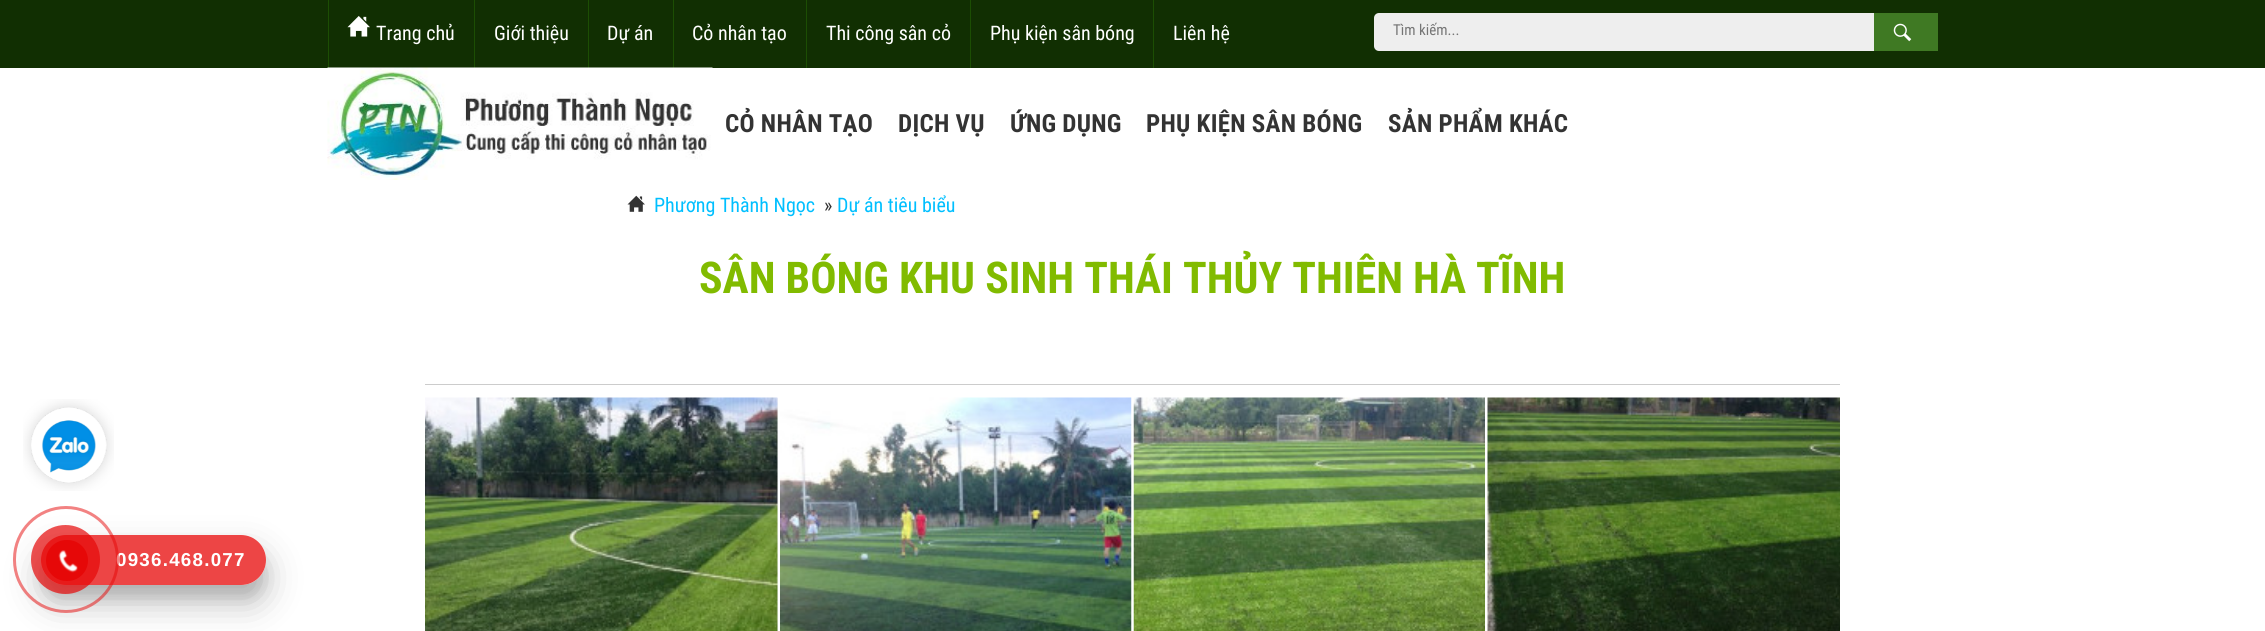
#include <cairo.h>
#include <math.h>
#include <stddef.h>

typedef struct { double x, y; const char *s; } line_t;

static void ink(cairo_t *ctx, unsigned color) {
    cairo_set_source_rgb(ctx, (color >> 16) / 255.0, (color >> 8 & 255) / 255.0, (color & 255) / 255.0);
}

static void write_spaced(cairo_t *ctx, double x, double y, const char *s, double letter, double word) {
    cairo_move_to(ctx, x, y);
    while (*s) {
        char ch[5] = {0};
        int n = 0;
        do ch[n++] = *s++; while ((*s & 0xC0) == 0x80);
        cairo_show_text(ctx, ch);
        cairo_rel_move_to(ctx, letter + word * (*ch == ' '), 0);
    }
}

static void round_path(cairo_t *ctx, double x, double y, double w, double h, double r) {
    cairo_new_sub_path(ctx);
    cairo_arc(ctx, x + w - r, y + h - r, r, 0, M_PI / 2);
    cairo_arc(ctx, x + r, y + h - r, r, M_PI / 2, M_PI);
    cairo_arc(ctx, x + r, y + r, r, M_PI, 1.5 * M_PI);
    cairo_arc(ctx, x + w - r, y + r, r, 1.5 * M_PI, 2 * M_PI);
    cairo_close_path(ctx);
}

static void blur_box(cairo_t *ctx, double x, double y, double w, double h, double r, double blur, double alpha) {
    cairo_push_group_with_content(ctx, CAIRO_CONTENT_ALPHA);
    cairo_set_operator(ctx, CAIRO_OPERATOR_SOURCE);
    for (int i = 15; i >= -15 && fmin(w, h) + blur * i / 3 > 0; i -= 2) {
        double e = blur * i / 6;
        cairo_set_source_rgba(ctx, 0, 0, 0, alpha * erfc((i - 1) / 8.5) / 2);
        round_path(ctx, x - e, y - e, w + 2 * e, h + 2 * e, fmax(0, fmin(r + e + blur * .6, fmin(w, h) / 2 + e)));
        cairo_fill(ctx);
    }
    cairo_pattern_t *soft = cairo_pop_group(ctx);
    cairo_mask(ctx, soft);
    cairo_pattern_destroy(soft);
}

static void paste(cairo_t *ctx, const char *path, double x, double y, double w, double h) {
    cairo_surface_t *image = cairo_image_surface_create_from_png(path);
    cairo_save(ctx);
    cairo_set_source_surface(ctx, image, x, y);
    cairo_rectangle(ctx, x, y, w, h);
    cairo_fill(ctx);
    cairo_restore(ctx);
    cairo_surface_destroy(image);
}

int main(void) {
    cairo_surface_t *surface = cairo_image_surface_create(CAIRO_FORMAT_RGB24, 2265, 631);
    cairo_t *ctx = cairo_create(surface);
    cairo_font_options_t *options = cairo_font_options_create();
    cairo_font_options_set_hint_metrics(options, CAIRO_HINT_METRICS_OFF);
    cairo_font_options_set_hint_style(options, CAIRO_HINT_STYLE_NONE);
    cairo_set_font_options(ctx, options);
    cairo_set_miter_limit(ctx, 4);
    ink(ctx, 0xFFFFFF);
    cairo_paint(ctx);
    ink(ctx, 0x112F02);
    cairo_rectangle(ctx, 0, 0, 2265, 68);
    cairo_fill(ctx);
    ink(ctx, 0x1C4E03);
    cairo_rectangle(ctx, 328, 0, 1, 68);
    cairo_fill(ctx);
    paste(ctx, "media/1.png", 347, 16, 23, 21);
    cairo_select_font_face(ctx, "Roboto Condensed", CAIRO_FONT_SLANT_NORMAL, CAIRO_FONT_WEIGHT_NORMAL);
    cairo_set_font_size(ctx, 20);
    ink(ctx, 0xFFFFFF);
    cairo_move_to(ctx, 376, 40);
    cairo_show_text(ctx, "Trang chủ");
    ink(ctx, 0x1C4E03);
    cairo_rectangle(ctx, 474, 0, 1, 68);
    cairo_fill(ctx);
    ink(ctx, 0xFFFFFF);
    cairo_move_to(ctx, 494, 40);
    cairo_show_text(ctx, "Giới thiệu");
    ink(ctx, 0x1C4E03);
    cairo_rectangle(ctx, 588, 0, 1, 68);
    cairo_fill(ctx);
    ink(ctx, 0xFFFFFF);
    cairo_move_to(ctx, 607, 40);
    cairo_show_text(ctx, "Dự án");
    ink(ctx, 0x1C4E03);
    cairo_rectangle(ctx, 673, 0, 1, 68);
    cairo_fill(ctx);
    ink(ctx, 0xFFFFFF);
    cairo_move_to(ctx, 692, 40);
    cairo_show_text(ctx, "Cỏ nhân tạo");
    ink(ctx, 0x1C4E03);
    cairo_rectangle(ctx, 806, 0, 1, 68);
    cairo_fill(ctx);
    ink(ctx, 0xFFFFFF);
    cairo_move_to(ctx, 826, 40);
    cairo_show_text(ctx, "Thi công sân cỏ");
    ink(ctx, 0x1C4E03);
    cairo_rectangle(ctx, 970, 0, 1, 68);
    cairo_fill(ctx);
    ink(ctx, 0xFFFFFF);
    cairo_move_to(ctx, 990, 40);
    cairo_show_text(ctx, "Phụ kiện sân bóng");
    ink(ctx, 0x1C4E03);
    cairo_rectangle(ctx, 1153, 0, 1, 68);
    cairo_fill(ctx);
    ink(ctx, 0xFFFFFF);
    cairo_move_to(ctx, 1173, 40);
    cairo_show_text(ctx, "Liên hệ");
    ink(ctx, 0xEEEEEE);
    round_path(ctx, 1374, 13, 564, 38, 5);
    cairo_fill(ctx);
    cairo_set_font_size(ctx, 15);
    ink(ctx, 0x757575);
    cairo_move_to(ctx, 1393, 35);
    cairo_show_text(ctx, "Tìm kiếm...");
    ink(ctx, 0x3F7923);
    cairo_rectangle(ctx, 1874, 13, 64, 38);
    cairo_fill(ctx);
    paste(ctx, "media/2.png", 1893, 23, 19, 19);
    paste(ctx, "media/3.png", 327, 67, 386, 113);
    cairo_select_font_face(ctx, "Roboto Condensed", CAIRO_FONT_SLANT_NORMAL, CAIRO_FONT_WEIGHT_BOLD);
    cairo_set_font_size(ctx, 25);
    ink(ctx, 0x333333);
    {
        static const line_t items[] = {
            {725, 132, "CỎ NHÂN TẠO"},
            {898, 132, "DỊCH VỤ"},
            {1010, 132, "ỨNG DỤNG"},
            {1146, 132, "PHỤ KIỆN SÂN BÓNG"},
            {1388, 132, "SẢN PHẨM KHÁC"},
        };
        for (size_t i = 0; i < sizeof items / sizeof *items; i++) {
            write_spaced(ctx, items[i].x, items[i].y, items[i].s, 0.25, 0);
        }
    }
    paste(ctx, "media/4.png", 627, 195, 18, 17);
    cairo_select_font_face(ctx, "Roboto Condensed", CAIRO_FONT_SLANT_NORMAL, CAIRO_FONT_WEIGHT_NORMAL);
    cairo_set_font_size(ctx, 20);
    ink(ctx, 0x00BFFF);
    cairo_move_to(ctx, 654, 212);
    cairo_show_text(ctx, "Phương Thành Ngọc");
    ink(ctx, 0x333333);
    cairo_move_to(ctx, 824, 212);
    cairo_show_text(ctx, "»");
    ink(ctx, 0x00BFFF);
    cairo_move_to(ctx, 837, 212);
    cairo_show_text(ctx, "Dự án tiêu biểu");
    cairo_select_font_face(ctx, "Roboto Condensed", CAIRO_FONT_SLANT_NORMAL, CAIRO_FONT_WEIGHT_BOLD);
    cairo_set_font_size(ctx, 43.75);
    ink(ctx, 0x81BB00);
    cairo_move_to(ctx, 699, 293);
    cairo_show_text(ctx, "SÂN BÓNG KHU SINH THÁI THỦY THIÊN HÀ TĨNH");
    ink(ctx, 0xCCCCCC);
    cairo_rectangle(ctx, 425, 384, 1415, 1);
    cairo_fill(ctx);
    ink(ctx, 0xF2F2F2);
    cairo_rectangle(ctx, 777, 398, 1, 233);
    cairo_fill(ctx);
    paste(ctx, "media/5.png", 425, 397, 353, 234);
    paste(ctx, "media/6.png", 780, 397, 352, 234);
    paste(ctx, "media/7.png", 1133, 397, 352, 234);
    paste(ctx, "media/8.png", 1487, 397, 353, 234);
    paste(ctx, "media/9.png", 23, 399, 91, 92);
    cairo_save(ctx);
    cairo_set_fill_rule(ctx, CAIRO_FILL_RULE_EVEN_ODD);
    cairo_new_path(ctx);
    cairo_move_to(ctx, 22, 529);
    cairo_line_to(ctx, 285, 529);
    cairo_line_to(ctx, 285, 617);
    cairo_line_to(ctx, 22, 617);
    cairo_close_path(ctx);
    cairo_move_to(ctx, 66, 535);
    cairo_line_to(ctx, 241, 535);
    cairo_curve_to(ctx, 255, 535, 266, 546, 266, 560);
    cairo_curve_to(ctx, 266, 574, 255, 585, 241, 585);
    cairo_line_to(ctx, 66, 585);
    cairo_curve_to(ctx, 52, 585, 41, 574, 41, 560);
    cairo_curve_to(ctx, 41, 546, 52, 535, 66, 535);
    cairo_close_path(ctx);
    cairo_clip(ctx);
    ink(ctx, 0x000000);
    blur_box(ctx, 41, 548, 225, 50, 25, 6, 0.1);
    cairo_restore(ctx);
    cairo_save(ctx);
    cairo_set_fill_rule(ctx, CAIRO_FILL_RULE_EVEN_ODD);
    cairo_new_path(ctx);
    cairo_move_to(ctx, 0, 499);
    cairo_line_to(ctx, 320, 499);
    cairo_line_to(ctx, 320, 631);
    cairo_line_to(ctx, 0, 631);
    cairo_close_path(ctx);
    cairo_move_to(ctx, 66, 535);
    cairo_line_to(ctx, 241, 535);
    cairo_curve_to(ctx, 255, 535, 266, 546, 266, 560);
    cairo_curve_to(ctx, 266, 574, 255, 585, 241, 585);
    cairo_line_to(ctx, 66, 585);
    cairo_curve_to(ctx, 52, 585, 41, 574, 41, 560);
    cairo_curve_to(ctx, 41, 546, 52, 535, 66, 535);
    cairo_close_path(ctx);
    cairo_clip(ctx);
    ink(ctx, 0x000000);
    blur_box(ctx, 41, 553, 225, 50, 25, 17.5, 0.25);
    cairo_restore(ctx);
    cairo_set_source_rgba(ctx, 0.902, 0.031, 0.031, 0.75);
    round_path(ctx, 41, 535, 225, 50, 25);
    cairo_fill(ctx);
    cairo_select_font_face(ctx, "Liberation Sans", CAIRO_FONT_SLANT_NORMAL, CAIRO_FONT_WEIGHT_BOLD);
    cairo_set_font_size(ctx, 18.75);
    ink(ctx, 0xFFFFFF);
    write_spaced(ctx, 116, 566, "0936.468.077", 1.25, 0);
    round_path(ctx, 14.5, 507.5, 103, 104, 51.5);
    cairo_set_source_rgba(ctx, 0.902, 0.031, 0.031, 0.5);
    cairo_set_line_width(ctx, 3);
    cairo_stroke(ctx);
    cairo_set_source_rgba(ctx, 0.902, 0.031, 0.031, 0.7);
    cairo_arc(ctx, 65.5, 559.5, 34.5, 0, 2 * M_PI);
    cairo_fill(ctx);
    ink(ctx, 0xE60808);
    round_path(ctx, 46, 540, 42, 41, 20.5);
    cairo_fill(ctx);
    paste(ctx, "media/10.png", 58, 550, 20, 23);
    cairo_surface_write_to_png(surface, "image.png");
    cairo_font_options_destroy(options);
    cairo_destroy(ctx);
    cairo_surface_destroy(surface);
    return 0;
}
